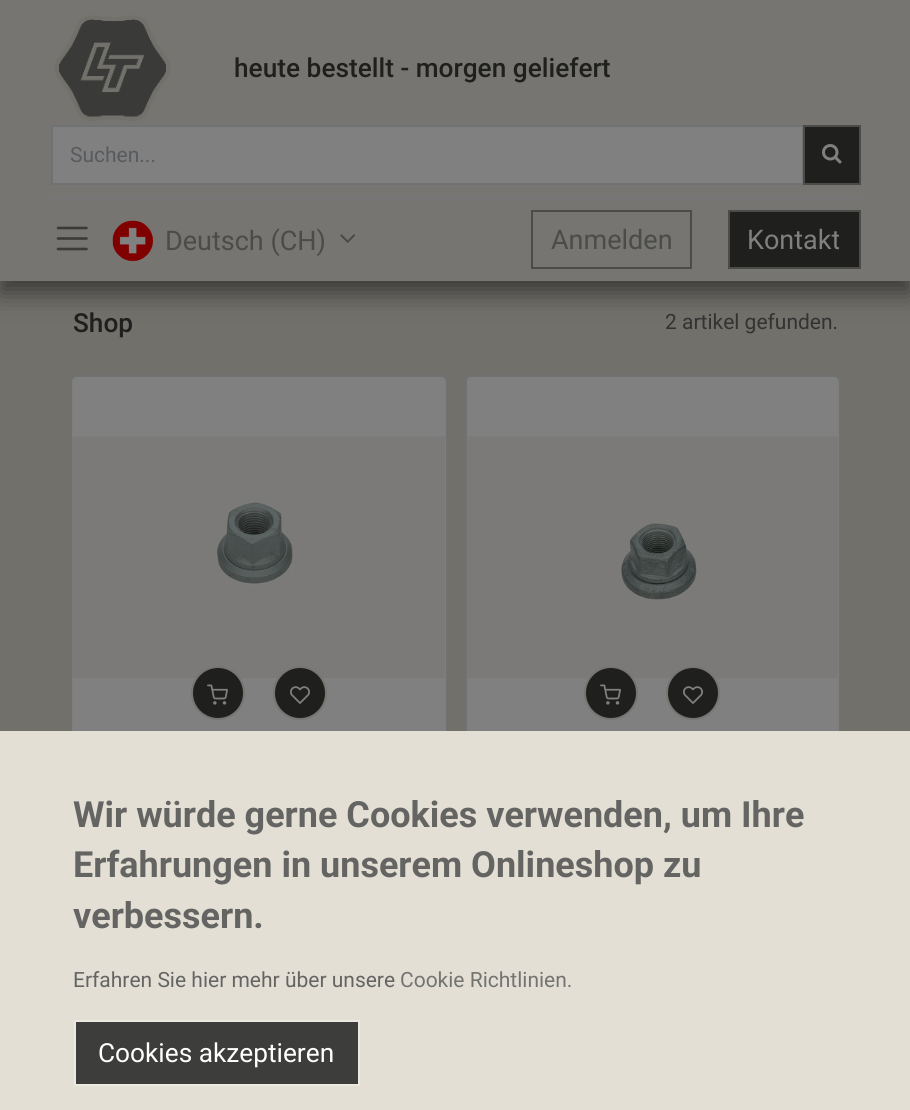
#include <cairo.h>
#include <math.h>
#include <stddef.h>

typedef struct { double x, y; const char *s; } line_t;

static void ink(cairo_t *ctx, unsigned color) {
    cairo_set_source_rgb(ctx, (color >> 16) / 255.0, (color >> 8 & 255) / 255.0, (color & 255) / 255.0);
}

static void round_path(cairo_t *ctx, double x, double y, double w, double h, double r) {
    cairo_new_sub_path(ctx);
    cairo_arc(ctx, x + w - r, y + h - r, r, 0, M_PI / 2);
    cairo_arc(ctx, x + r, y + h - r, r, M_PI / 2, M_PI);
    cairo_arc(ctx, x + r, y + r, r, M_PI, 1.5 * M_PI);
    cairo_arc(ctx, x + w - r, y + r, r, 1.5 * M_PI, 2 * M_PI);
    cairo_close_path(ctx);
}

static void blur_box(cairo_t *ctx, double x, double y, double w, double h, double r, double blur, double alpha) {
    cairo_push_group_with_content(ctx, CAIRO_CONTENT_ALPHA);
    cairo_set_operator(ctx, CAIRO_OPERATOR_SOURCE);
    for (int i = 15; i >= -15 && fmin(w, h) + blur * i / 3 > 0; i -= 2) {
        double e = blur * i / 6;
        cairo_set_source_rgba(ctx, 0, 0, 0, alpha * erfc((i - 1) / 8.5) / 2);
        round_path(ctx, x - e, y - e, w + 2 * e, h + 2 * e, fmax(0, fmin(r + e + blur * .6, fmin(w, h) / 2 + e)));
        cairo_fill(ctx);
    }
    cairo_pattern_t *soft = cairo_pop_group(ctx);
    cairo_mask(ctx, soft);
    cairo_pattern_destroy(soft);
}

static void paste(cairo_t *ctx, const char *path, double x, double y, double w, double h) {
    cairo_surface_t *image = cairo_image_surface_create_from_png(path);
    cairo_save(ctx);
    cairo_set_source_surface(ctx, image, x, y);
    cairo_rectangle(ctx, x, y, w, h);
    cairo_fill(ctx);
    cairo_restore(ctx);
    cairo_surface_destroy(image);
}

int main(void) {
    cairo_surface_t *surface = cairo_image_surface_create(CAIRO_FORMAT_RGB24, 910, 1110);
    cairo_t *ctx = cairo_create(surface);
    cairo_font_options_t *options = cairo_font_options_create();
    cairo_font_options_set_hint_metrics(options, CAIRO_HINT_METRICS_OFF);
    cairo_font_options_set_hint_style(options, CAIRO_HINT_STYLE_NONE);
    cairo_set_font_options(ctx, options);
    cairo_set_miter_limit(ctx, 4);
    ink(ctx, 0x72706B);
    cairo_paint(ctx);
    ink(ctx, 0x3A3A38);
    blur_box(ctx, 0, 12, 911, 281, 0, 12, 1);
    ink(ctx, 0x767571);
    cairo_rectangle(ctx, 0, 0, 910, 281);
    cairo_fill(ctx);
    paste(ctx, "media/1.png", 54, 15, 117, 106);
    cairo_select_font_face(ctx, "Roboto Medium", CAIRO_FONT_SLANT_NORMAL, CAIRO_FONT_WEIGHT_NORMAL);
    cairo_set_font_size(ctx, 26.25);
    ink(ctx, 0x1F1F1E);
    cairo_move_to(ctx, 234, 77);
    cairo_show_text(ctx, "heute bestellt - morgen geliefert");
    ink(ctx, 0x808080);
    cairo_rectangle(ctx, 52, 126, 751, 58);
    cairo_fill_preserve(ctx);
    ink(ctx, 0x6F7173);
    cairo_stroke(ctx);
    cairo_select_font_face(ctx, "Roboto", CAIRO_FONT_SLANT_NORMAL, CAIRO_FONT_WEIGHT_NORMAL);
    cairo_set_font_size(ctx, 21);
    ink(ctx, 0x575B5F);
    cairo_move_to(ctx, 70, 162);
    cairo_show_text(ctx, "Suchen...");
    ink(ctx, 0x1F1F1E);
    cairo_rectangle(ctx, 804, 126, 56, 58);
    cairo_fill_preserve(ctx);
    ink(ctx, 0x4B4B49);
    cairo_stroke(ctx);
    paste(ctx, "media/2.png", 822, 144, 20, 20);
    ink(ctx, 0x757678);
    cairo_rectangle(ctx, 51, 197, 810, 2);
    cairo_fill(ctx);
    cairo_new_path(ctx);
    cairo_move_to(ctx, 58, 228);
    cairo_line_to(ctx, 86.5, 228);
    cairo_move_to(ctx, 58, 238.5);
    cairo_line_to(ctx, 86.5, 238.5);
    cairo_move_to(ctx, 58, 249);
    cairo_line_to(ctx, 86.5, 249);
    ink(ctx, 0x3B3B39);
    cairo_set_line_width(ctx, 2.6);
    cairo_set_line_cap(ctx, CAIRO_LINE_CAP_ROUND);
    cairo_stroke(ctx);
    paste(ctx, "media/3.png", 112, 220, 41, 41);
    cairo_set_font_size(ctx, 27);
    ink(ctx, 0x4B4B49);
    cairo_move_to(ctx, 165, 250);
    cairo_show_text(ctx, "Deutsch (CH)");
    paste(ctx, "media/4.png", 340, 234, 16, 9);
    cairo_rectangle(ctx, 532, 211, 159, 57);
    cairo_set_line_width(ctx, 2);
    cairo_set_line_cap(ctx, CAIRO_LINE_CAP_BUTT);
    cairo_stroke(ctx);
    cairo_move_to(ctx, 551, 249);
    cairo_show_text(ctx, "Anmelden");
    ink(ctx, 0x1F1F1E);
    cairo_rectangle(ctx, 729, 211, 131, 57);
    cairo_fill_preserve(ctx);
    ink(ctx, 0x4B4B49);
    cairo_stroke(ctx);
    ink(ctx, 0x808080);
    cairo_move_to(ctx, 747, 249);
    cairo_show_text(ctx, "Kontakt");
    cairo_select_font_face(ctx, "Roboto Medium", CAIRO_FONT_SLANT_NORMAL, CAIRO_FONT_WEIGHT_NORMAL);
    cairo_set_font_size(ctx, 26.25);
    ink(ctx, 0x1F1F1E);
    cairo_move_to(ctx, 73, 332);
    cairo_show_text(ctx, "Shop");
    cairo_select_font_face(ctx, "Roboto", CAIRO_FONT_SLANT_NORMAL, CAIRO_FONT_WEIGHT_NORMAL);
    cairo_set_font_size(ctx, 21);
    ink(ctx, 0x323332);
    cairo_move_to(ctx, 665, 329);
    cairo_show_text(ctx, "2 artikel gefunden.");
    ink(ctx, 0x808080);
    round_path(ctx, 72, 376, 374, 511, 5);
    cairo_fill_preserve(ctx);
    ink(ctx, 0x6F7173);
    cairo_stroke(ctx);
    cairo_set_source_rgba(ctx, 0.502, 0.502, 0.502, 0.9);
    cairo_new_path(ctx);
    cairo_move_to(ctx, 77, 377);
    cairo_line_to(ctx, 441, 377);
    cairo_curve_to(ctx, 444, 377, 446, 379, 446, 382);
    cairo_line_to(ctx, 446, 737);
    cairo_line_to(ctx, 72, 737);
    cairo_line_to(ctx, 72, 382);
    cairo_curve_to(ctx, 72, 379, 74, 377, 77, 377);
    cairo_close_path(ctx);
    cairo_fill(ctx);
    paste(ctx, "media/5.png", 72, 436, 373, 242);
    ink(ctx, 0x1F1F1E);
    cairo_arc(ctx, 218, 693, 26, 0, 2 * M_PI);
    cairo_fill_preserve(ctx);
    ink(ctx, 0x767571);
    cairo_stroke(ctx);
    paste(ctx, "media/6.png", 207, 684, 21, 21);
    ink(ctx, 0x1F1F1E);
    cairo_arc(ctx, 300, 693, 26, 0, 2 * M_PI);
    cairo_fill_preserve(ctx);
    ink(ctx, 0x767571);
    cairo_stroke(ctx);
    paste(ctx, "media/7.png", 290, 686, 20, 18);
    ink(ctx, 0x808080);
    round_path(ctx, 466, 376, 373, 511, 5);
    cairo_fill_preserve(ctx);
    ink(ctx, 0x6F7173);
    cairo_stroke(ctx);
    cairo_set_source_rgba(ctx, 0.502, 0.502, 0.502, 0.9);
    cairo_new_path(ctx);
    cairo_move_to(ctx, 472, 377);
    cairo_line_to(ctx, 834, 377);
    cairo_curve_to(ctx, 837, 377, 839, 379, 839, 382);
    cairo_line_to(ctx, 839, 737);
    cairo_line_to(ctx, 467, 737);
    cairo_line_to(ctx, 467, 382);
    cairo_curve_to(ctx, 467, 379, 469, 377, 472, 377);
    cairo_close_path(ctx);
    cairo_fill(ctx);
    paste(ctx, "media/8.png", 466, 436, 372, 242);
    ink(ctx, 0x1F1F1E);
    cairo_arc(ctx, 611, 693, 26, 0, 2 * M_PI);
    cairo_fill_preserve(ctx);
    ink(ctx, 0x767571);
    cairo_stroke(ctx);
    paste(ctx, "media/6.png", 600, 684, 21, 21);
    ink(ctx, 0x1F1F1E);
    cairo_arc(ctx, 693, 693, 26, 0, 2 * M_PI);
    cairo_fill_preserve(ctx);
    ink(ctx, 0x767571);
    cairo_stroke(ctx);
    paste(ctx, "media/7.png", 683, 686, 20, 18);
    ink(ctx, 0xE4DFD5);
    cairo_rectangle(ctx, 0, 731, 910, 379);
    cairo_fill(ctx);
    cairo_select_font_face(ctx, "Roboto", CAIRO_FONT_SLANT_NORMAL, CAIRO_FONT_WEIGHT_BOLD);
    cairo_set_font_size(ctx, 36);
    ink(ctx, 0x646563);
    {
        static const line_t items[] = {
            {73, 827, "Wir würde gerne Cookies verwenden, um Ihre"},
            {73, 877, "Erfahrungen in unserem Onlineshop zu"},
            {73, 928, "verbessern."},
        };
        for (size_t i = 0; i < sizeof items / sizeof *items; i++) {
            cairo_move_to(ctx, items[i].x, items[i].y);
            cairo_show_text(ctx, items[i].s);
        }
    }
    cairo_select_font_face(ctx, "Roboto", CAIRO_FONT_SLANT_NORMAL, CAIRO_FONT_WEIGHT_NORMAL);
    cairo_set_font_size(ctx, 21);
    cairo_move_to(ctx, 73, 987);
    cairo_show_text(ctx, "Erfahren Sie hier mehr über unsere");
    ink(ctx, 0x737470);
    cairo_move_to(ctx, 400, 987);
    cairo_show_text(ctx, "Cookie Richtlinien.");
    ink(ctx, 0x3D3D3C);
    cairo_rectangle(ctx, 75, 1021, 284, 64);
    cairo_fill_preserve(ctx);
    ink(ctx, 0xECE9E1);
    cairo_stroke(ctx);
    cairo_set_font_size(ctx, 26.25);
    ink(ctx, 0xFFFFFF);
    cairo_move_to(ctx, 98, 1062);
    cairo_show_text(ctx, "Cookies akzeptieren");
    cairo_surface_write_to_png(surface, "image.png");
    cairo_font_options_destroy(options);
    cairo_destroy(ctx);
    cairo_surface_destroy(surface);
    return 0;
}
